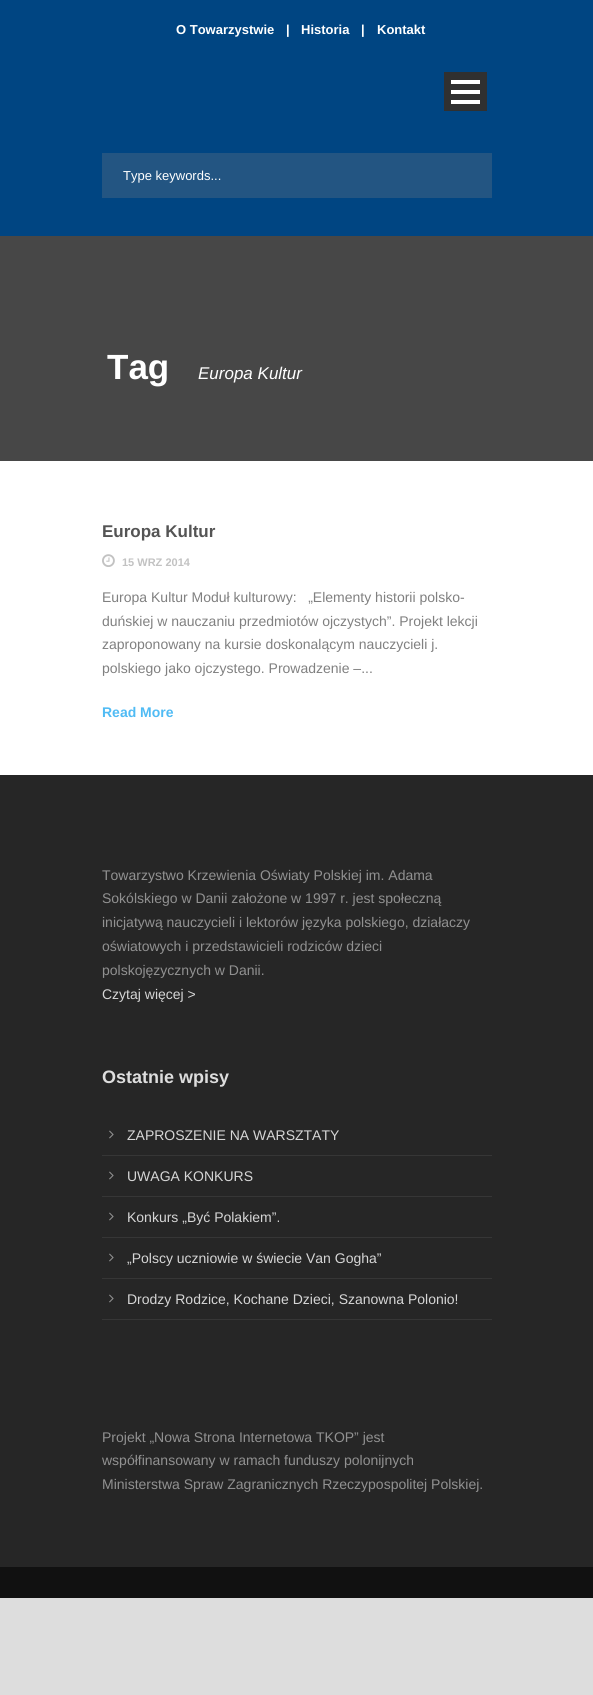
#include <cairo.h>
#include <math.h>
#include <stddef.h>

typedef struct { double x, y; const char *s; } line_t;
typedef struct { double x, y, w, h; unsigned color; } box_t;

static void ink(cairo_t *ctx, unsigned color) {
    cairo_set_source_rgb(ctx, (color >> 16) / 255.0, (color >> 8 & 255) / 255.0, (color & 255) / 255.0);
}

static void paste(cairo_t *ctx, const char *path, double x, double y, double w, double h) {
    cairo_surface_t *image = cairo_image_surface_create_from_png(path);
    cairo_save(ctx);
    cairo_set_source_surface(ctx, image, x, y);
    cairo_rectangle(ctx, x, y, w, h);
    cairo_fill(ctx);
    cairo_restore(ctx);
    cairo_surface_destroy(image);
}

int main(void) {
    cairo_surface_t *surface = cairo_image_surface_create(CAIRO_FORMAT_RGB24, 593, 1695);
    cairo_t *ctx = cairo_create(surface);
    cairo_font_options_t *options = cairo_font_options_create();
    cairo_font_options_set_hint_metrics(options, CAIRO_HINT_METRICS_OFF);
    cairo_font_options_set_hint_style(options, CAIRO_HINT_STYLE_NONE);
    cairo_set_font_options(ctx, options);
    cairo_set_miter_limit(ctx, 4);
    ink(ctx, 0xDDDDDD);
    cairo_paint(ctx);
    ink(ctx, 0xFFFFFF);
    cairo_rectangle(ctx, 0, 461, 593, 314);
    cairo_fill(ctx);
    ink(ctx, 0x004582);
    cairo_rectangle(ctx, 0, 0, 593, 236);
    cairo_fill(ctx);
    cairo_select_font_face(ctx, "Liberation Sans", CAIRO_FONT_SLANT_NORMAL, CAIRO_FONT_WEIGHT_BOLD);
    cairo_set_font_size(ctx, 13);
    ink(ctx, 0xFFFFFF);
    {
        static const line_t items[] = {
            {176, 34, "O Towarzystwie"},
            {286, 34, "|"},
            {301, 34, "Historia"},
            {361, 34, "|"},
            {377, 34, "Kontakt"},
        };
        for (size_t i = 0; i < sizeof items / sizeof *items; i++) {
            cairo_move_to(ctx, items[i].x, items[i].y);
            cairo_show_text(ctx, items[i].s);
        }
    }
    {
        static const box_t items[] = {
            {444, 72, 43, 39, 0x303030},
            {451, 100, 29, 4, 0xFFFFFF},
            {451, 90, 29, 4, 0xFFFFFF},
            {451, 80, 29, 4, 0xFFFFFF},
            {102, 153, 390, 45, 0x235582},
        };
        for (size_t i = 0; i < sizeof items / sizeof *items; i++) {
            ink(ctx, items[i].color);
            cairo_rectangle(ctx, items[i].x, items[i].y, items[i].w, items[i].h);
            cairo_fill(ctx);
        }
    }
    cairo_select_font_face(ctx, "Liberation Sans", CAIRO_FONT_SLANT_NORMAL, CAIRO_FONT_WEIGHT_NORMAL);
    ink(ctx, 0xFFFFFF);
    cairo_move_to(ctx, 123, 180);
    cairo_show_text(ctx, "Type keywords...");
    ink(ctx, 0x474747);
    cairo_rectangle(ctx, 0, 236, 593, 225);
    cairo_fill(ctx);
    cairo_select_font_face(ctx, "Liberation Sans", CAIRO_FONT_SLANT_NORMAL, CAIRO_FONT_WEIGHT_BOLD);
    cairo_set_font_size(ctx, 35);
    ink(ctx, 0xFFFFFF);
    cairo_move_to(ctx, 107, 379);
    cairo_show_text(ctx, "Tag");
    cairo_select_font_face(ctx, "Liberation Sans", CAIRO_FONT_SLANT_ITALIC, CAIRO_FONT_WEIGHT_NORMAL);
    cairo_set_font_size(ctx, 17);
    cairo_move_to(ctx, 198, 379);
    cairo_show_text(ctx, "Europa Kultur");
    cairo_select_font_face(ctx, "Liberation Sans", CAIRO_FONT_SLANT_NORMAL, CAIRO_FONT_WEIGHT_BOLD);
    ink(ctx, 0x545454);
    cairo_move_to(ctx, 102, 537);
    cairo_show_text(ctx, "Europa Kultur");
    paste(ctx, "media/1.png", 102, 554, 13, 13);
    cairo_set_font_size(ctx, 11);
    ink(ctx, 0xC2C2C2);
    cairo_move_to(ctx, 122, 566);
    cairo_show_text(ctx, "15 WRZ 2014");
    cairo_select_font_face(ctx, "Liberation Sans", CAIRO_FONT_SLANT_NORMAL, CAIRO_FONT_WEIGHT_NORMAL);
    cairo_set_font_size(ctx, 14);
    ink(ctx, 0x808080);
    {
        static const line_t items[] = {
            {102, 602, "Europa Kultur Moduł kulturowy:   „Elementy historii polsko-"},
            {102, 626, "duńskiej w nauczaniu przedmiotów ojczystych”. Projekt lekcji"},
            {102, 649, "zaproponowany na kursie doskonalącym nauczycieli j."},
            {102, 673, "polskiego jako ojczystego. Prowadzenie –..."},
        };
        for (size_t i = 0; i < sizeof items / sizeof *items; i++) {
            cairo_move_to(ctx, items[i].x, items[i].y);
            cairo_show_text(ctx, items[i].s);
        }
    }
    cairo_select_font_face(ctx, "Liberation Sans", CAIRO_FONT_SLANT_NORMAL, CAIRO_FONT_WEIGHT_BOLD);
    ink(ctx, 0x50BBF4);
    cairo_move_to(ctx, 102, 717);
    cairo_show_text(ctx, "Read More");
    ink(ctx, 0x262626);
    cairo_rectangle(ctx, 0, 775, 593, 792);
    cairo_fill(ctx);
    cairo_select_font_face(ctx, "Liberation Sans", CAIRO_FONT_SLANT_NORMAL, CAIRO_FONT_WEIGHT_NORMAL);
    ink(ctx, 0x919191);
    {
        static const line_t items[] = {
            {102, 880, "Towarzystwo Krzewienia Oświaty Polskiej im. Adama"},
            {102, 903, "Sokólskiego w Danii założone w 1997 r. jest społeczną"},
            {102, 927, "inicjatywą nauczycieli i lektorów języka polskiego, działaczy"},
            {102, 951, "oświatowych i przedstawicieli rodziców dzieci"},
            {102, 975, "polskojęzycznych w Danii."},
        };
        for (size_t i = 0; i < sizeof items / sizeof *items; i++) {
            cairo_move_to(ctx, items[i].x, items[i].y);
            cairo_show_text(ctx, items[i].s);
        }
    }
    ink(ctx, 0xD6D6D6);
    cairo_move_to(ctx, 102, 999);
    cairo_show_text(ctx, "Czytaj więcej >");
    cairo_select_font_face(ctx, "Liberation Sans", CAIRO_FONT_SLANT_NORMAL, CAIRO_FONT_WEIGHT_BOLD);
    cairo_set_font_size(ctx, 18);
    ink(ctx, 0xDDDDDD);
    cairo_move_to(ctx, 102, 1083);
    cairo_show_text(ctx, "Ostatnie wpisy");
    ink(ctx, 0x363636);
    cairo_rectangle(ctx, 102, 1155, 390, 1);
    cairo_fill(ctx);
    paste(ctx, "media/2.png", 109, 1130, 5, 9);
    cairo_select_font_face(ctx, "Liberation Sans", CAIRO_FONT_SLANT_NORMAL, CAIRO_FONT_WEIGHT_NORMAL);
    cairo_set_font_size(ctx, 14);
    ink(ctx, 0xD6D6D6);
    cairo_move_to(ctx, 127, 1140);
    cairo_show_text(ctx, "ZAPROSZENIE NA WARSZTATY");
    ink(ctx, 0x363636);
    cairo_rectangle(ctx, 102, 1196, 390, 1);
    cairo_fill(ctx);
    paste(ctx, "media/2.png", 109, 1171, 5, 9);
    ink(ctx, 0xD6D6D6);
    cairo_move_to(ctx, 127, 1181);
    cairo_show_text(ctx, "UWAGA KONKURS");
    ink(ctx, 0x363636);
    cairo_rectangle(ctx, 102, 1237, 390, 1);
    cairo_fill(ctx);
    paste(ctx, "media/2.png", 109, 1212, 5, 9);
    ink(ctx, 0xD6D6D6);
    cairo_move_to(ctx, 127, 1222);
    cairo_show_text(ctx, "Konkurs „Być Polakiem”.");
    ink(ctx, 0x363636);
    cairo_rectangle(ctx, 102, 1278, 390, 1);
    cairo_fill(ctx);
    paste(ctx, "media/2.png", 109, 1253, 5, 9);
    ink(ctx, 0xD6D6D6);
    cairo_move_to(ctx, 127, 1263);
    cairo_show_text(ctx, "„Polscy uczniowie w świecie Van Gogha”");
    ink(ctx, 0x363636);
    cairo_rectangle(ctx, 102, 1319, 390, 1);
    cairo_fill(ctx);
    paste(ctx, "media/2.png", 109, 1294, 5, 9);
    ink(ctx, 0xD6D6D6);
    cairo_move_to(ctx, 127, 1304);
    cairo_show_text(ctx, "Drodzy Rodzice, Kochane Dzieci, Szanowna Polonio!");
    ink(ctx, 0x919191);
    {
        static const line_t items[] = {
            {102, 1442, "Projekt „Nowa Strona Internetowa TKOP” jest"},
            {102, 1465, "współfinansowany w ramach funduszy polonijnych"},
            {102, 1489, "Ministerstwa Spraw Zagranicznych Rzeczypospolitej Polskiej."},
        };
        for (size_t i = 0; i < sizeof items / sizeof *items; i++) {
            cairo_move_to(ctx, items[i].x, items[i].y);
            cairo_show_text(ctx, items[i].s);
        }
    }
    ink(ctx, 0x111111);
    cairo_rectangle(ctx, 0, 1567, 593, 31);
    cairo_fill(ctx);
    cairo_surface_write_to_png(surface, "image.png");
    cairo_font_options_destroy(options);
    cairo_destroy(ctx);
    cairo_surface_destroy(surface);
    return 0;
}
